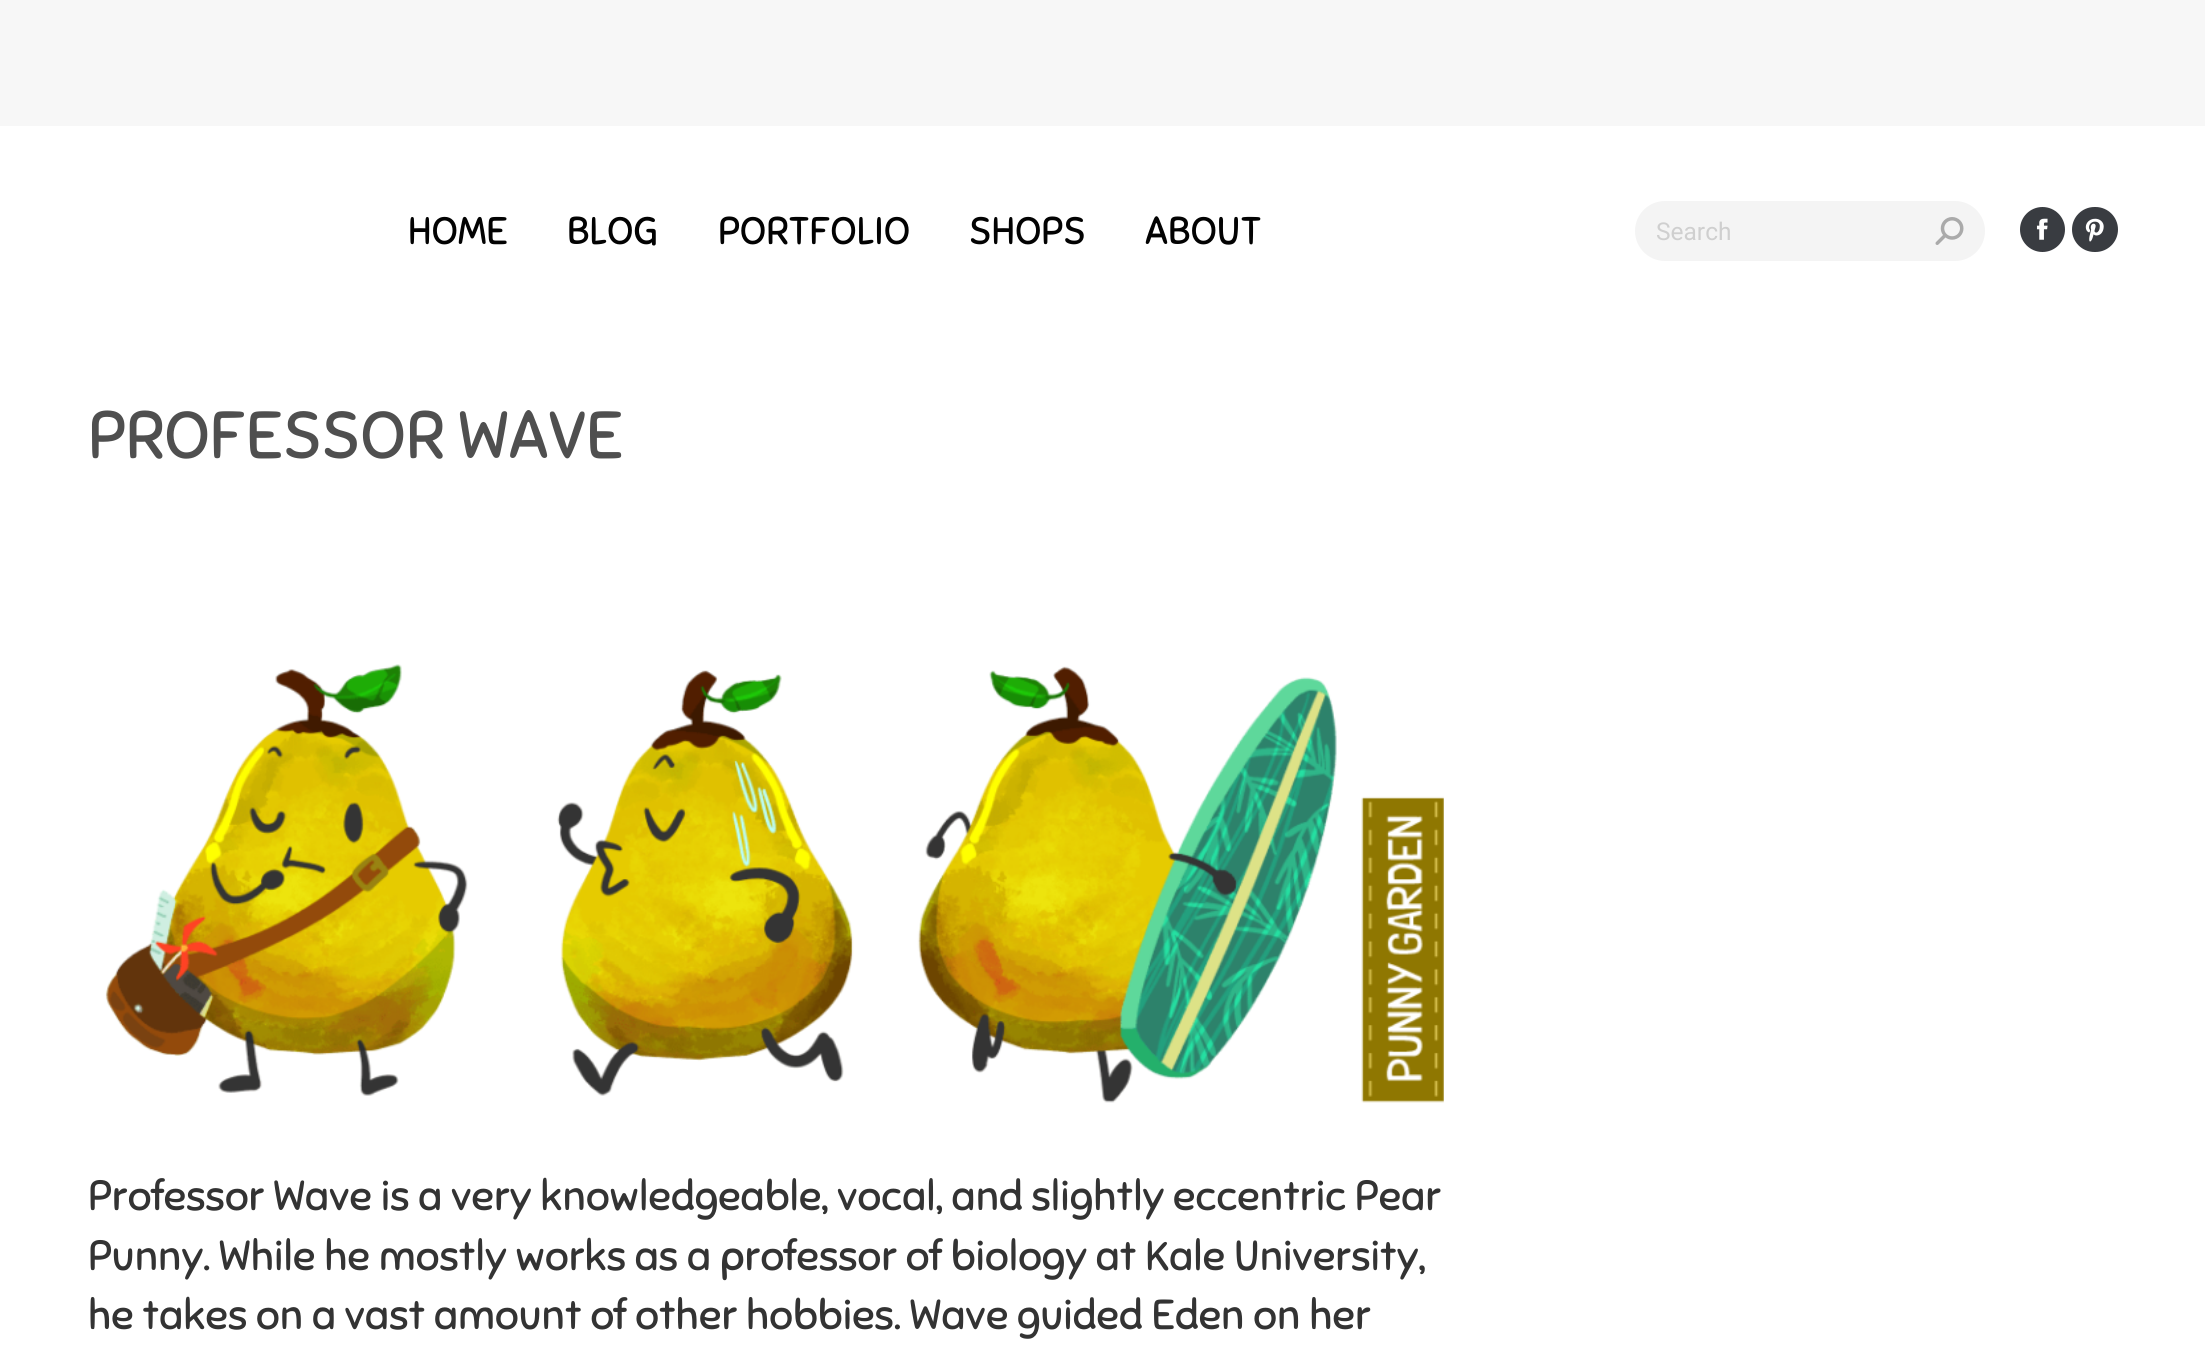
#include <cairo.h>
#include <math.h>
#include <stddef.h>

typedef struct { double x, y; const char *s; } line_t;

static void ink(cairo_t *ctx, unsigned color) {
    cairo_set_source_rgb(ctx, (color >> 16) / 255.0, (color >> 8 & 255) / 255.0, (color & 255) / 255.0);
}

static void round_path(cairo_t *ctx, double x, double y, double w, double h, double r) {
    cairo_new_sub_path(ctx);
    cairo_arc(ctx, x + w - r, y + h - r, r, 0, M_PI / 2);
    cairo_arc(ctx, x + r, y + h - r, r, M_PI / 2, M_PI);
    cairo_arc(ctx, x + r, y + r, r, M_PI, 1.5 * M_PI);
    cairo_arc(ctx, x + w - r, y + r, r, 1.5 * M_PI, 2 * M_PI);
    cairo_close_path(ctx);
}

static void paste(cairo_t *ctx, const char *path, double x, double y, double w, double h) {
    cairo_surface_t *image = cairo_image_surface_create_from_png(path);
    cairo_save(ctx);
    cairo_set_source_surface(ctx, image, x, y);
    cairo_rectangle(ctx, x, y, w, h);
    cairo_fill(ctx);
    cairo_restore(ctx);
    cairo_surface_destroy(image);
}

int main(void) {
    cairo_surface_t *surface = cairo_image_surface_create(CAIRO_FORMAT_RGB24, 2205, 1371);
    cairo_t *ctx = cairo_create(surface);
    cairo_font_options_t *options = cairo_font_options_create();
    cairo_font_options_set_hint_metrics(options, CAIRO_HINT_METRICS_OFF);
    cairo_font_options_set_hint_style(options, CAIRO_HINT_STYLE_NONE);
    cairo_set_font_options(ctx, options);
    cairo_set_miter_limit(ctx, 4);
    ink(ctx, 0xF7F7F7);
    cairo_paint(ctx);
    ink(ctx, 0xFFFFFF);
    cairo_rectangle(ctx, 0, 126, 2205, 1245);
    cairo_fill(ctx);
    cairo_select_font_face(ctx, "Sniglet", CAIRO_FONT_SLANT_NORMAL, CAIRO_FONT_WEIGHT_NORMAL);
    cairo_set_font_size(ctx, 38.5);
    ink(ctx, 0x020202);
    {
        static const line_t items[] = {
            {408, 244, "HOME"},
            {567, 244, "BLOG"},
            {718, 244, "PORTFOLIO"},
            {969, 244, "SHOPS"},
            {1145, 244, "ABOUT"},
        };
        for (size_t i = 0; i < sizeof items / sizeof *items; i++) {
            cairo_move_to(ctx, items[i].x, items[i].y);
            cairo_show_text(ctx, items[i].s);
        }
    }
    ink(ctx, 0xF4F4F4);
    round_path(ctx, 1635, 201, 350, 60, 30);
    cairo_fill(ctx);
    cairo_select_font_face(ctx, "Roboto", CAIRO_FONT_SLANT_NORMAL, CAIRO_FONT_WEIGHT_NORMAL);
    cairo_set_font_size(ctx, 24.5);
    ink(ctx, 0xCFCFCF);
    cairo_move_to(ctx, 1656, 240);
    cairo_show_text(ctx, "Search");
    paste(ctx, "media/1.png", 1935, 217, 29, 28);
    ink(ctx, 0x393C41);
    cairo_arc(ctx, 2042.5, 229.5, 22.5, 0, 2 * M_PI);
    cairo_fill(ctx);
    paste(ctx, "media/2.png", 2036, 218, 12, 22);
    round_path(ctx, 2072, 207, 46, 45, 22.5);
    cairo_fill(ctx);
    paste(ctx, "media/3.png", 2085, 218, 19, 24);
    cairo_select_font_face(ctx, "Sniglet", CAIRO_FONT_SLANT_NORMAL, CAIRO_FONT_WEIGHT_NORMAL);
    cairo_set_font_size(ctx, 66.5);
    ink(ctx, 0x4F4F4F);
    cairo_move_to(ctx, 88, 458);
    cairo_show_text(ctx, "PROFESSOR WAVE");
    paste(ctx, "media/4.png", 105, 664, 1339, 439);
    cairo_set_font_size(ctx, 42);
    ink(ctx, 0x333333);
    {
        static const line_t items[] = {
            {88, 1210, "Professor Wave is a very knowledgeable, vocal, and slightly eccentric Pear"},
            {88, 1270, "Punny. While he mostly works as a professor of biology at Kale University,"},
            {88, 1329, "he takes on a vast amount of other hobbies. Wave guided Eden on her"},
        };
        for (size_t i = 0; i < sizeof items / sizeof *items; i++) {
            cairo_move_to(ctx, items[i].x, items[i].y);
            cairo_show_text(ctx, items[i].s);
        }
    }
    cairo_surface_write_to_png(surface, "image.png");
    cairo_font_options_destroy(options);
    cairo_destroy(ctx);
    cairo_surface_destroy(surface);
    return 0;
}
